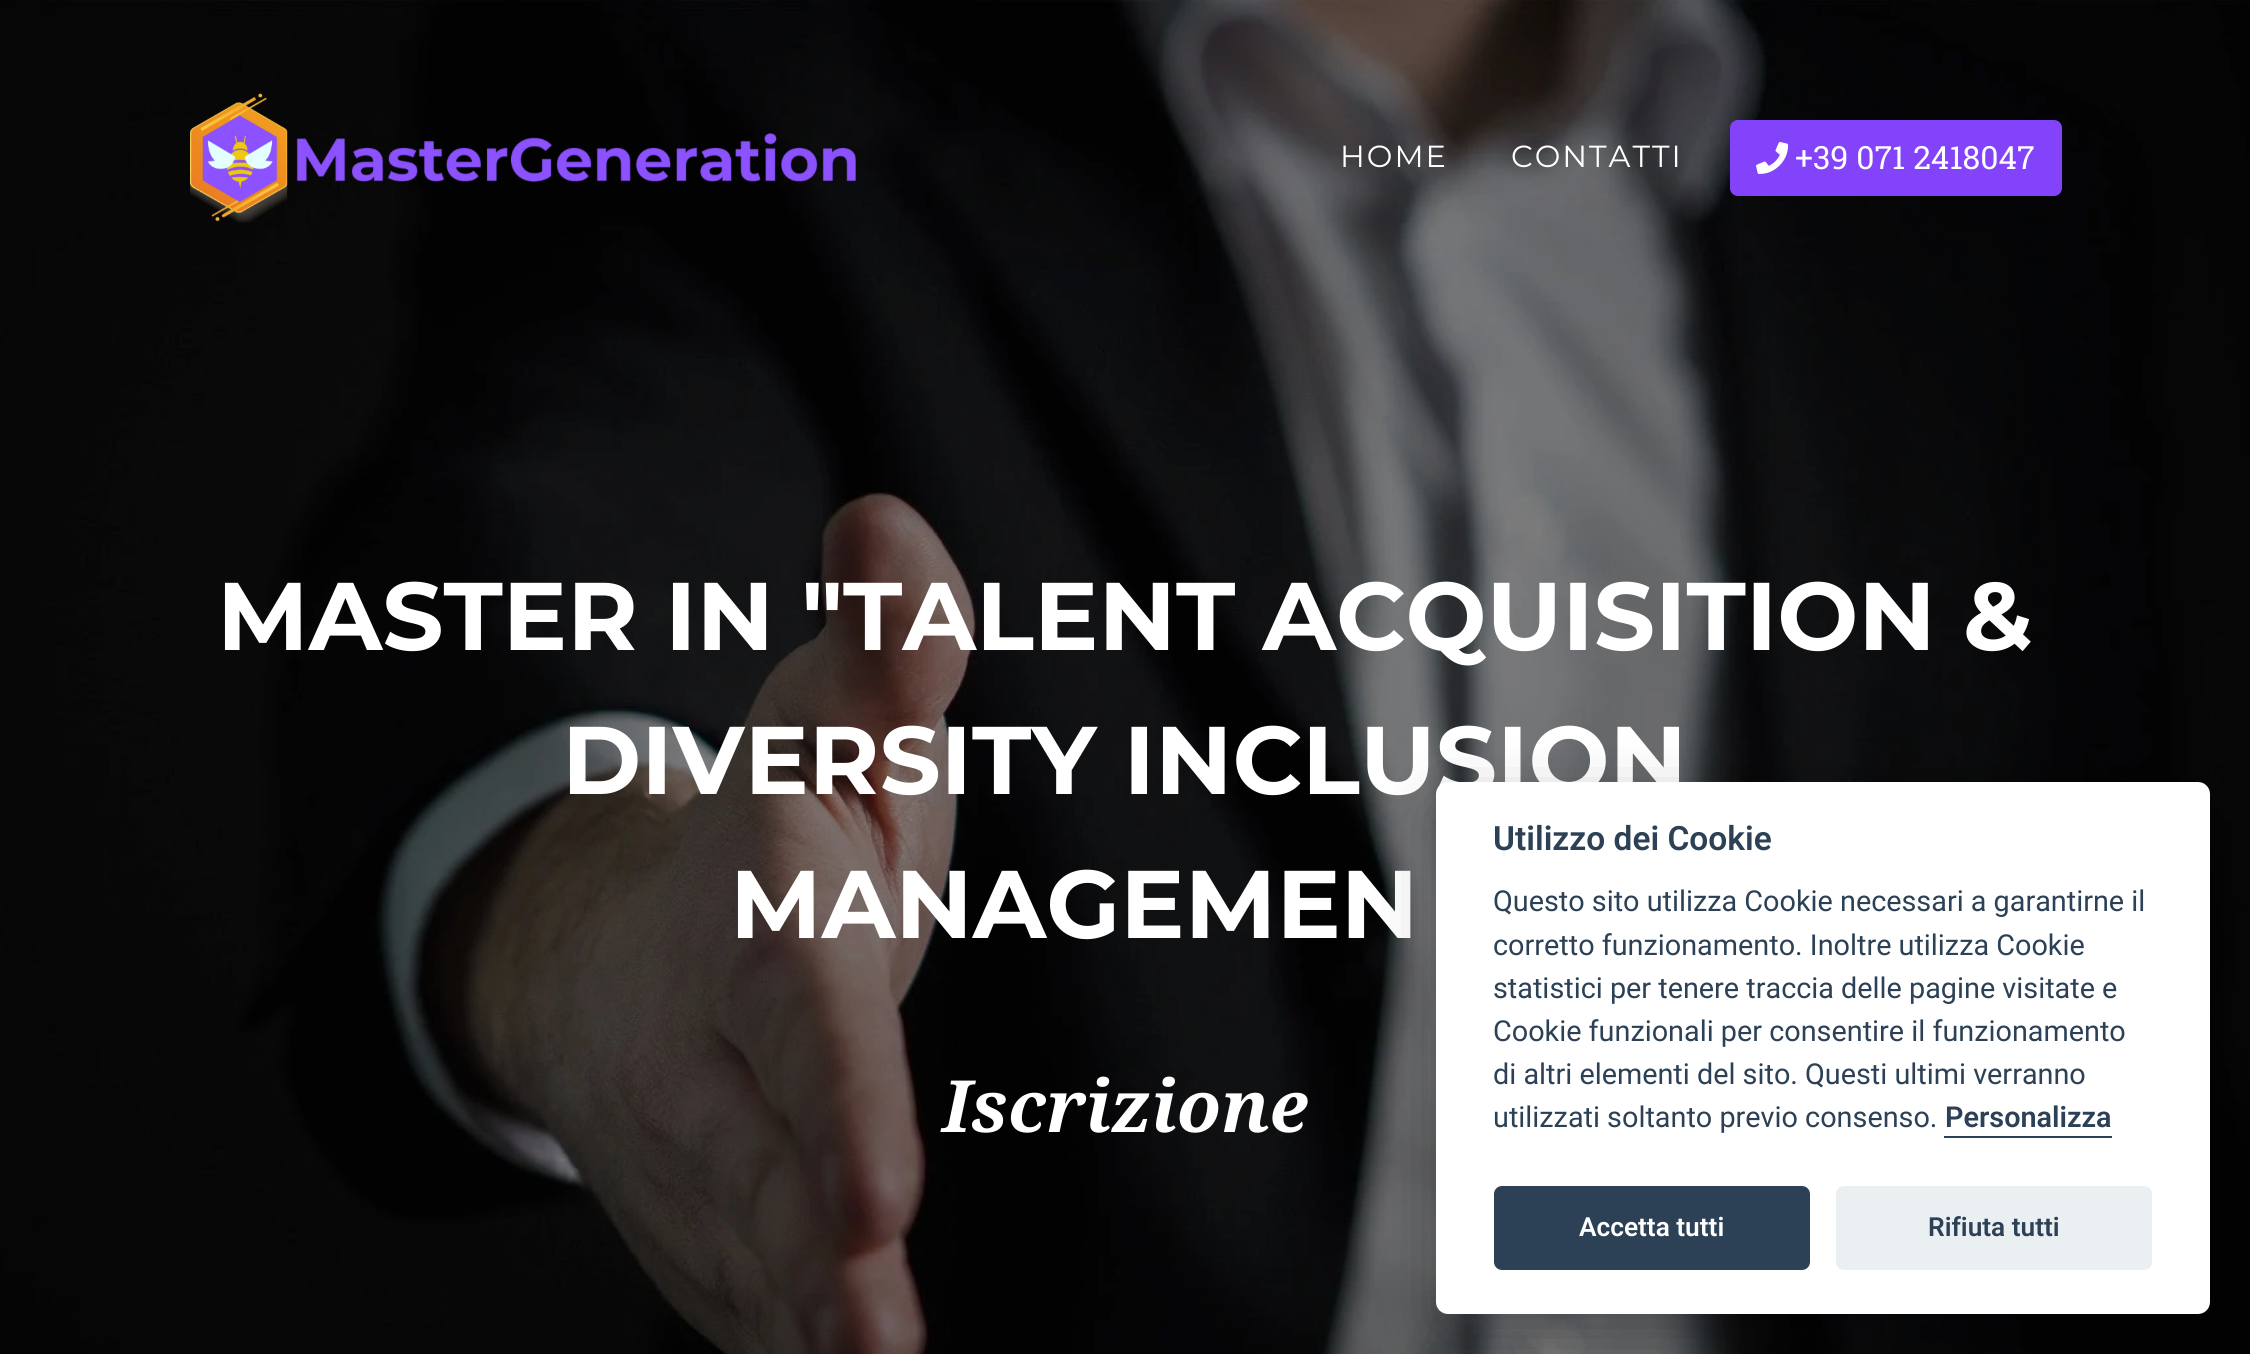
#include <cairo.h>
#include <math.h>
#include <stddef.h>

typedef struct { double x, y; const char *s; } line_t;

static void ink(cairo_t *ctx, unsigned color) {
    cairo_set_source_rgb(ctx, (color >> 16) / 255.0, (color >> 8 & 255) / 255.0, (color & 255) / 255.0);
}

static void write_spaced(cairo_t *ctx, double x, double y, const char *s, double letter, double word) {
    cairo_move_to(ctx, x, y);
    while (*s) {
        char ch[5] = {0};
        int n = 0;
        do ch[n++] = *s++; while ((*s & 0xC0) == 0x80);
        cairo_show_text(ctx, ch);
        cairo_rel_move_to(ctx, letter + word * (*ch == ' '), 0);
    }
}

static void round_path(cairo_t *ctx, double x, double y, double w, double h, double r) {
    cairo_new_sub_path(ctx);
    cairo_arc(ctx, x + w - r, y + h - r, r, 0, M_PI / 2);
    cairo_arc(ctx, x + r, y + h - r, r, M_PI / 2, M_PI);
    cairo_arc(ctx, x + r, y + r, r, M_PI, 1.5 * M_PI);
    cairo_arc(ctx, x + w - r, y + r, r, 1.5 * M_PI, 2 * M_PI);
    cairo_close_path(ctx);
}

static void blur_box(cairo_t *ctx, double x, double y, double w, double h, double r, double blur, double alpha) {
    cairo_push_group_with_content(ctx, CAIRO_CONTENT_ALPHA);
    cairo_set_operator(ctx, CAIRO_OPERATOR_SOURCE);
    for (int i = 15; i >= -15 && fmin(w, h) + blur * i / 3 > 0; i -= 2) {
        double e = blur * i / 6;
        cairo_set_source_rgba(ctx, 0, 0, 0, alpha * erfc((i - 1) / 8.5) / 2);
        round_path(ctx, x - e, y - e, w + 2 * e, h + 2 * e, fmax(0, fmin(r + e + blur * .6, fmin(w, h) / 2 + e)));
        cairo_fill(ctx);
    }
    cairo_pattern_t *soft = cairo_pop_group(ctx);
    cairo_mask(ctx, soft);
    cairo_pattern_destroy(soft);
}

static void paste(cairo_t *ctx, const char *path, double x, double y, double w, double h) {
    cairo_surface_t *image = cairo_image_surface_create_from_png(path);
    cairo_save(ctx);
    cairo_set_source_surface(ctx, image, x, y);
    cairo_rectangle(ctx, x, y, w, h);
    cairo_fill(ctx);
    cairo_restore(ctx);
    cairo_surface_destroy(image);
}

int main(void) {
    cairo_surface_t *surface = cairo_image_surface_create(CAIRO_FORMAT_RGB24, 2250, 1354);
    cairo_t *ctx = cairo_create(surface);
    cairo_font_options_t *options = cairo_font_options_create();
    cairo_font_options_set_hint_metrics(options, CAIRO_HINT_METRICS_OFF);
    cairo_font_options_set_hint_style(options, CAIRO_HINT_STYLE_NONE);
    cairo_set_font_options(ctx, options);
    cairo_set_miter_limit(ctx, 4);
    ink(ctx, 0xFFFFFF);
    cairo_paint(ctx);
    paste(ctx, "media/3.png", 0, 0, 2250, 1354);
    paste(ctx, "media/1.png", 190, 93, 666, 130);
    cairo_select_font_face(ctx, "Montserrat", CAIRO_FONT_SLANT_NORMAL, CAIRO_FONT_WEIGHT_NORMAL);
    cairo_set_font_size(ctx, 30.5);
    ink(ctx, 0xFFFFFF);
    write_spaced(ctx, 1340, 167, "HOME", 2, 0);
    write_spaced(ctx, 1511, 167, "CONTATTI", 2, 0);
    ink(ctx, 0x8343FA);
    round_path(ctx, 1730, 120, 332, 76, 8);
    cairo_fill(ctx);
    paste(ctx, "media/2.png", 1756, 142, 33, 32);
    cairo_select_font_face(ctx, "Roboto Slab", CAIRO_FONT_SLANT_NORMAL, CAIRO_FONT_WEIGHT_NORMAL);
    cairo_set_font_size(ctx, 32);
    ink(ctx, 0xFFFFFF);
    cairo_move_to(ctx, 1795, 169);
    cairo_show_text(ctx, "+39 071 2418047");
    cairo_select_font_face(ctx, "Montserrat", CAIRO_FONT_SLANT_NORMAL, CAIRO_FONT_WEIGHT_BOLD);
    cairo_set_font_size(ctx, 96);
    {
        static const line_t items[] = {
            {217, 650, "MASTER IN \"TALENT ACQUISITION &"},
            {562, 794, "DIVERSITY INCLUSION"},
            {730, 938, "MANAGEMEN"},
        };
        for (size_t i = 0; i < sizeof items / sizeof *items; i++) {
            cairo_move_to(ctx, items[i].x, items[i].y);
            cairo_show_text(ctx, items[i].s);
        }
    }
    cairo_select_font_face(ctx, "Droid Serif", CAIRO_FONT_SLANT_ITALIC, CAIRO_FONT_WEIGHT_BOLD);
    cairo_set_font_size(ctx, 72);
    cairo_move_to(ctx, 942, 1132);
    cairo_show_text(ctx, "Iscrizione");
    ink(ctx, 0x020203);
    blur_box(ctx, 1436, 802, 774, 532, 12, 30, 0.28);
    ink(ctx, 0xFFFFFF);
    round_path(ctx, 1436, 782, 774, 532, 12);
    cairo_fill(ctx);
    cairo_select_font_face(ctx, "Roboto SemiBold", CAIRO_FONT_SLANT_NORMAL, CAIRO_FONT_WEIGHT_NORMAL);
    cairo_set_font_size(ctx, 33.5);
    ink(ctx, 0x2D4156);
    cairo_move_to(ctx, 1493, 850);
    cairo_show_text(ctx, "Utilizzo dei Cookie");
    cairo_select_font_face(ctx, "Roboto", CAIRO_FONT_SLANT_NORMAL, CAIRO_FONT_WEIGHT_NORMAL);
    cairo_set_font_size(ctx, 28.8);
    {
        static const line_t items[] = {
            {1493, 911, "Questo sito utilizza Cookie necessari a garantirne il"},
            {1493, 955, "corretto funzionamento. Inoltre utilizza Cookie"},
            {1493, 998, "statistici per tenere traccia delle pagine visitate e"},
            {1493, 1041, "Cookie funzionali per consentire il funzionamento"},
            {1493, 1084, "di altri elementi del sito. Questi ultimi verranno"},
            {1493, 1127, "utilizzati soltanto previo consenso."},
        };
        for (size_t i = 0; i < sizeof items / sizeof *items; i++) {
            cairo_move_to(ctx, items[i].x, items[i].y);
            cairo_show_text(ctx, items[i].s);
        }
    }
    cairo_select_font_face(ctx, "Roboto SemiBold", CAIRO_FONT_SLANT_NORMAL, CAIRO_FONT_WEIGHT_NORMAL);
    cairo_move_to(ctx, 1945, 1127);
    cairo_show_text(ctx, "Personalizza");
    cairo_rectangle(ctx, 1944, 1136, 168, 2);
    cairo_fill(ctx);
    round_path(ctx, 1494, 1186, 316, 84, 8);
    cairo_fill(ctx);
    cairo_set_font_size(ctx, 26.25);
    ink(ctx, 0xFFFFFF);
    cairo_move_to(ctx, 1579, 1236);
    cairo_show_text(ctx, "Accetta tutti");
    ink(ctx, 0xEAEFF2);
    round_path(ctx, 1836, 1186, 316, 84, 8);
    cairo_fill(ctx);
    ink(ctx, 0x2D4156);
    cairo_move_to(ctx, 1928, 1236);
    cairo_show_text(ctx, "Rifiuta tutti");
    cairo_surface_write_to_png(surface, "image.png");
    cairo_font_options_destroy(options);
    cairo_destroy(ctx);
    cairo_surface_destroy(surface);
    return 0;
}
